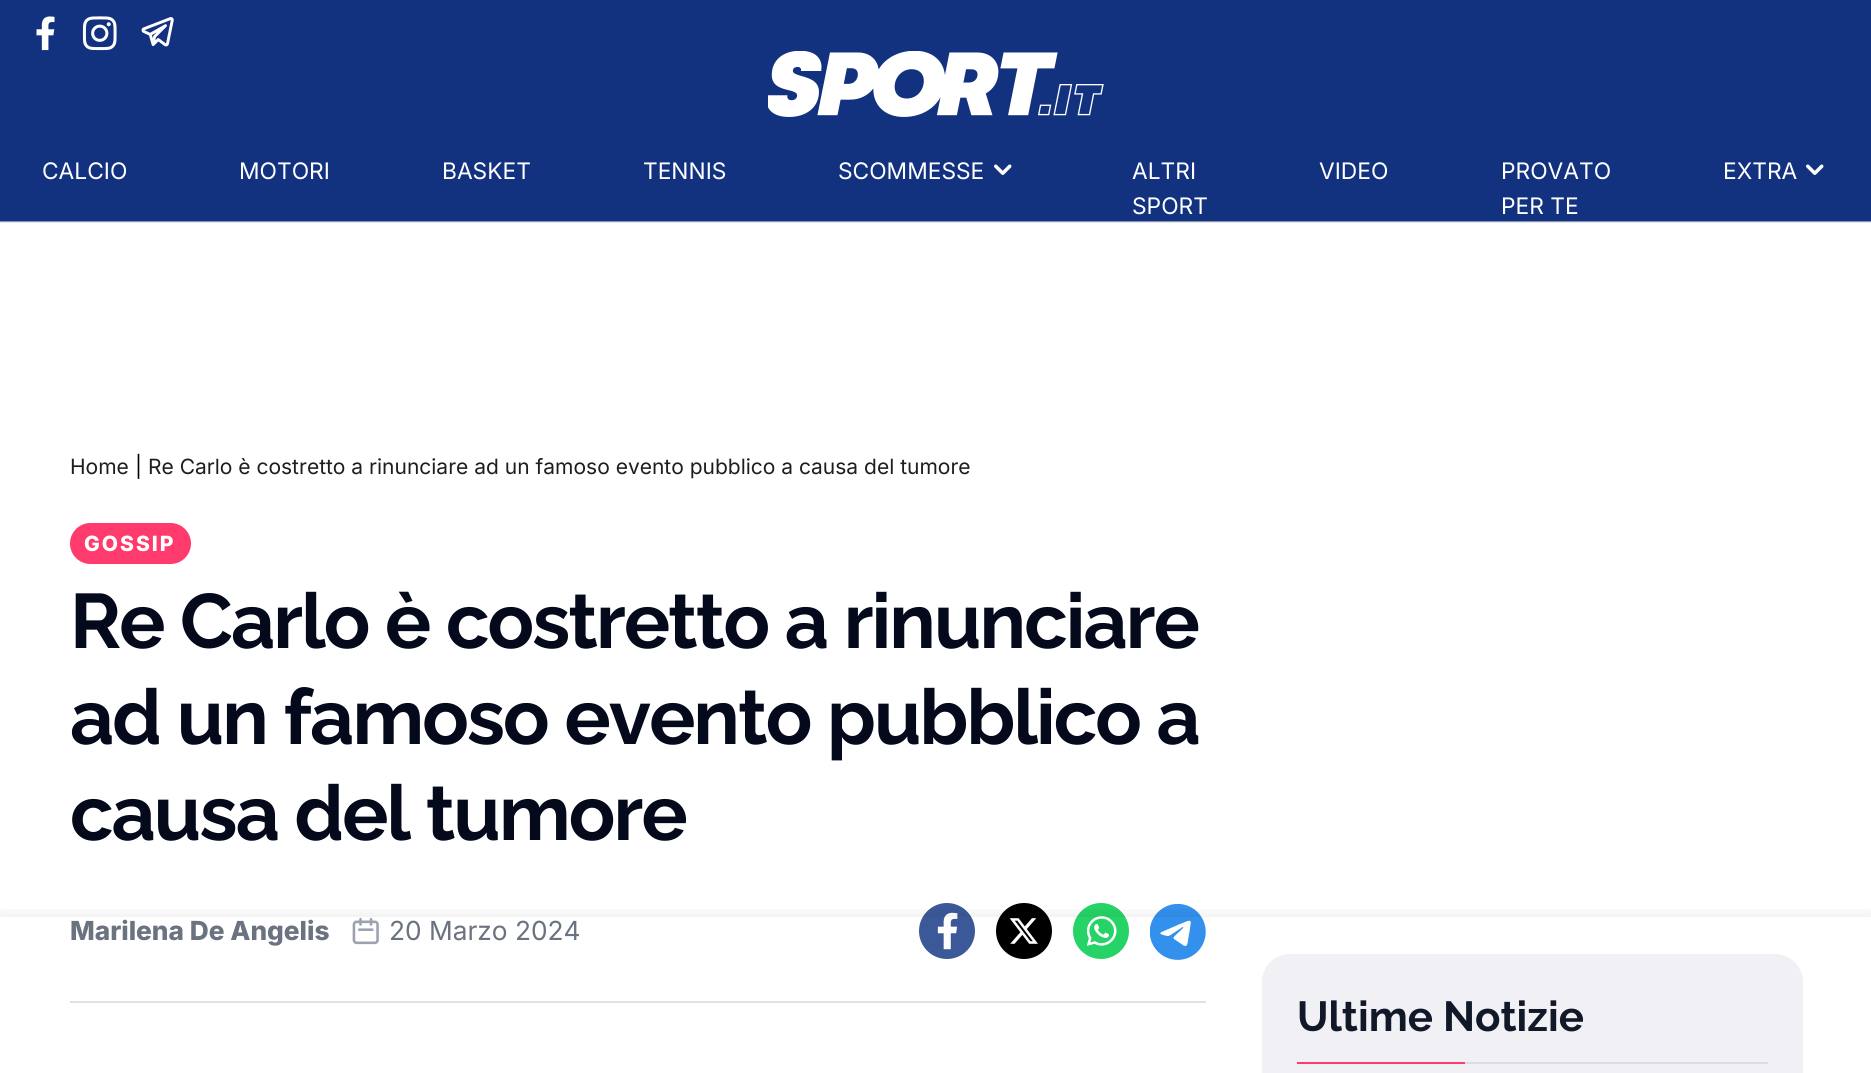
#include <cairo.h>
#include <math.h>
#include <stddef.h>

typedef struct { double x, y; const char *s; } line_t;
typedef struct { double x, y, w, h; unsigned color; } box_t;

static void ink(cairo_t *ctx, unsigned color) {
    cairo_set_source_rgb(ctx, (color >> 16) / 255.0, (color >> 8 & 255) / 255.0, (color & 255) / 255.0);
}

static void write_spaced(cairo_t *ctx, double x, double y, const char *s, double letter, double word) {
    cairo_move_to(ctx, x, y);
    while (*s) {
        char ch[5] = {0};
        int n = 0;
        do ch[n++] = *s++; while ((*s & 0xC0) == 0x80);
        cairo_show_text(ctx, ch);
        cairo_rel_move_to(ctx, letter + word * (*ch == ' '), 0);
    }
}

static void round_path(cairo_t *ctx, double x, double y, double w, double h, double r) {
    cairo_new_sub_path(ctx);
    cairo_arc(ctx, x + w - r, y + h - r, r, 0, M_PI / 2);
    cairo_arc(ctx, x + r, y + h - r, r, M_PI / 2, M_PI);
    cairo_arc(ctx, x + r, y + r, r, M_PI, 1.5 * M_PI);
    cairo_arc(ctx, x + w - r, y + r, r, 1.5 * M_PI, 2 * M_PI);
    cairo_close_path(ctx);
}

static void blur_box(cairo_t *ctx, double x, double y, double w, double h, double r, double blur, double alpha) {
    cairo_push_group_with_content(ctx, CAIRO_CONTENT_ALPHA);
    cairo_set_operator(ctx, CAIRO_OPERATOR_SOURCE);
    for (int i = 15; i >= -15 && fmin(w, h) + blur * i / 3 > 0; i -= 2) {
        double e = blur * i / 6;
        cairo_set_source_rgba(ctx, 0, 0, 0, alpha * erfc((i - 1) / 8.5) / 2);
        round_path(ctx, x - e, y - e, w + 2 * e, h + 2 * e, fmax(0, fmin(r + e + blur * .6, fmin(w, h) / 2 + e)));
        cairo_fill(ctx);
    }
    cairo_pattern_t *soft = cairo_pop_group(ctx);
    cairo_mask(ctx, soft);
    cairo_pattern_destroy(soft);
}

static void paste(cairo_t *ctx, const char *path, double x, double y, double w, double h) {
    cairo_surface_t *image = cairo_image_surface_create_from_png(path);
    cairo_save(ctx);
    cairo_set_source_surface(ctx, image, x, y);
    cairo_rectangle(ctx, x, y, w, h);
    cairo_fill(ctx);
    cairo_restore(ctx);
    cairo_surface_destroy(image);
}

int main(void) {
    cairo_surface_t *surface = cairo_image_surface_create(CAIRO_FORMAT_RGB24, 1871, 1073);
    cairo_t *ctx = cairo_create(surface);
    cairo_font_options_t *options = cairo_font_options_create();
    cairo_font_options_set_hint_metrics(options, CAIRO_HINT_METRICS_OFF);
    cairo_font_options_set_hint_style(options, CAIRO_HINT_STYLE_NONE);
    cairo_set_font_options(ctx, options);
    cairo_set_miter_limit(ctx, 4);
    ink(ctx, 0xFFFFFF);
    cairo_paint(ctx);
    {
        static const box_t items[] = {
            {0, 222, 1871, 1, 0xE3E6E9},
            {0, 0, 1871, 221, 0x123280},
            {0, 221, 1871, 1, 0x8594B7},
        };
        for (size_t i = 0; i < sizeof items / sizeof *items; i++) {
            ink(ctx, items[i].color);
            cairo_rectangle(ctx, items[i].x, items[i].y, items[i].w, items[i].h);
            cairo_fill(ctx);
        }
    }
    paste(ctx, "media/1.png", 36, 16, 19, 35);
    paste(ctx, "media/2.png", 82, 16, 35, 35);
    paste(ctx, "media/3.png", 141, 17, 33, 30);
    paste(ctx, "media/4.png", 768, 51, 336, 66);
    cairo_select_font_face(ctx, "Inter", CAIRO_FONT_SLANT_NORMAL, CAIRO_FONT_WEIGHT_NORMAL);
    cairo_set_font_size(ctx, 22.75);
    ink(ctx, 0xFFFFFF);
    {
        static const line_t items[] = {
            {42, 179, "CALCIO"},
            {239, 179, "MOTORI"},
            {442, 179, "BASKET"},
            {643, 179, "TENNIS"},
            {838, 179, "SCOMMESSE"},
        };
        for (size_t i = 0; i < sizeof items / sizeof *items; i++) {
            cairo_move_to(ctx, items[i].x, items[i].y);
            cairo_show_text(ctx, items[i].s);
        }
    }
    paste(ctx, "media/5.png", 994, 164, 18, 11);
    {
        static const line_t items[] = {
            {1132, 179, "ALTRI"},
            {1132, 214, "SPORT"},
            {1319, 179, "VIDEO"},
            {1501, 179, "PROVATO"},
            {1501, 214, "PER TE"},
            {1723, 179, "EXTRA"},
        };
        for (size_t i = 0; i < sizeof items / sizeof *items; i++) {
            cairo_move_to(ctx, items[i].x, items[i].y);
            cairo_show_text(ctx, items[i].s);
        }
    }
    paste(ctx, "media/5.png", 1806, 164, 18, 11);
    ink(ctx, 0xDFE2E6);
    cairo_rectangle(ctx, 70, 1001, 1136, 2);
    cairo_fill(ctx);
    cairo_set_font_size(ctx, 21);
    ink(ctx, 0x1E1E1E);
    cairo_move_to(ctx, 70, 474);
    cairo_show_text(ctx, "Home");
    ink(ctx, 0x000000);
    cairo_move_to(ctx, 135, 474);
    cairo_show_text(ctx, "|");
    ink(ctx, 0x1E1E1E);
    cairo_move_to(ctx, 148, 474);
    cairo_show_text(ctx, "Re Carlo è costretto a rinunciare ad un famoso evento pubblico a causa del tumore");
    ink(ctx, 0xFF3A6D);
    round_path(ctx, 70, 523, 121, 41, 20.5);
    cairo_fill(ctx);
    cairo_select_font_face(ctx, "Inter ExtraBold", CAIRO_FONT_SLANT_NORMAL, CAIRO_FONT_WEIGHT_NORMAL);
    ink(ctx, 0xFFFFFF);
    write_spaced(ctx, 84, 551, "GOSSIP", 2, 0);
    cairo_select_font_face(ctx, "Raleway", CAIRO_FONT_SLANT_NORMAL, CAIRO_FONT_WEIGHT_BOLD);
    cairo_set_font_size(ctx, 77);
    ink(ctx, 0x040A1B);
    {
        static const line_t items[] = {
            {70, 648, "Re Carlo è costretto a rinunciare"},
            {70, 744, "ad un famoso evento pubblico a"},
            {70, 840, "causa del tumore"},
        };
        for (size_t i = 0; i < sizeof items / sizeof *items; i++) {
            write_spaced(ctx, items[i].x, items[i].y, items[i].s, -1.9, 0);
        }
    }
    cairo_select_font_face(ctx, "Inter ExtraBold", CAIRO_FONT_SLANT_NORMAL, CAIRO_FONT_WEIGHT_NORMAL);
    cairo_set_font_size(ctx, 26.25);
    ink(ctx, 0x6B7280);
    cairo_move_to(ctx, 70, 940);
    cairo_show_text(ctx, "Marilena De Angelis");
    paste(ctx, "media/6.png", 352, 917, 27, 28);
    cairo_select_font_face(ctx, "Inter", CAIRO_FONT_SLANT_NORMAL, CAIRO_FONT_WEIGHT_NORMAL);
    cairo_move_to(ctx, 389, 940);
    cairo_show_text(ctx, "20 Marzo 2024");
    ink(ctx, 0x3B5998);
    cairo_new_path(ctx);
    cairo_arc(ctx, 947, 931, 28, 0, 2 * M_PI);
    cairo_fill(ctx);
    paste(ctx, "media/7.png", 937, 912, 21, 38);
    ink(ctx, 0x000000);
    cairo_arc(ctx, 1024, 931, 28, 0, 2 * M_PI);
    cairo_fill(ctx);
    paste(ctx, "media/8.png", 1009, 918, 29, 26);
    ink(ctx, 0x25D366);
    cairo_arc(ctx, 1101, 931, 28, 0, 2 * M_PI);
    cairo_fill(ctx);
    paste(ctx, "media/9.png", 1087, 916, 30, 30);
    paste(ctx, "media/10.png", 1150, 903, 56, 57);
    ink(ctx, 0xF0F0F5);
    round_path(ctx, 1262, 954, 541, 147, 28);
    cairo_fill(ctx);
    ink(ctx, 0xDADDE3);
    cairo_rectangle(ctx, 1465, 1062, 303, 2);
    cairo_fill(ctx);
    cairo_select_font_face(ctx, "Raleway", CAIRO_FONT_SLANT_NORMAL, CAIRO_FONT_WEIGHT_BOLD);
    cairo_set_font_size(ctx, 42);
    ink(ctx, 0x111827);
    cairo_move_to(ctx, 1297, 1031);
    cairo_show_text(ctx, "Ultime Notizie");
    ink(ctx, 0xFF3A6D);
    cairo_rectangle(ctx, 1297, 1062, 168, 2);
    cairo_fill(ctx);
    cairo_save(ctx);
    cairo_rectangle(ctx, 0, 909, 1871, 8);
    cairo_clip(ctx);
    ink(ctx, 0x000000);
    blur_box(ctx, 0, 917, 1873, 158, 0, 9, 0.1);
    cairo_restore(ctx);
    cairo_surface_write_to_png(surface, "image.png");
    cairo_font_options_destroy(options);
    cairo_destroy(ctx);
    cairo_surface_destroy(surface);
    return 0;
}
